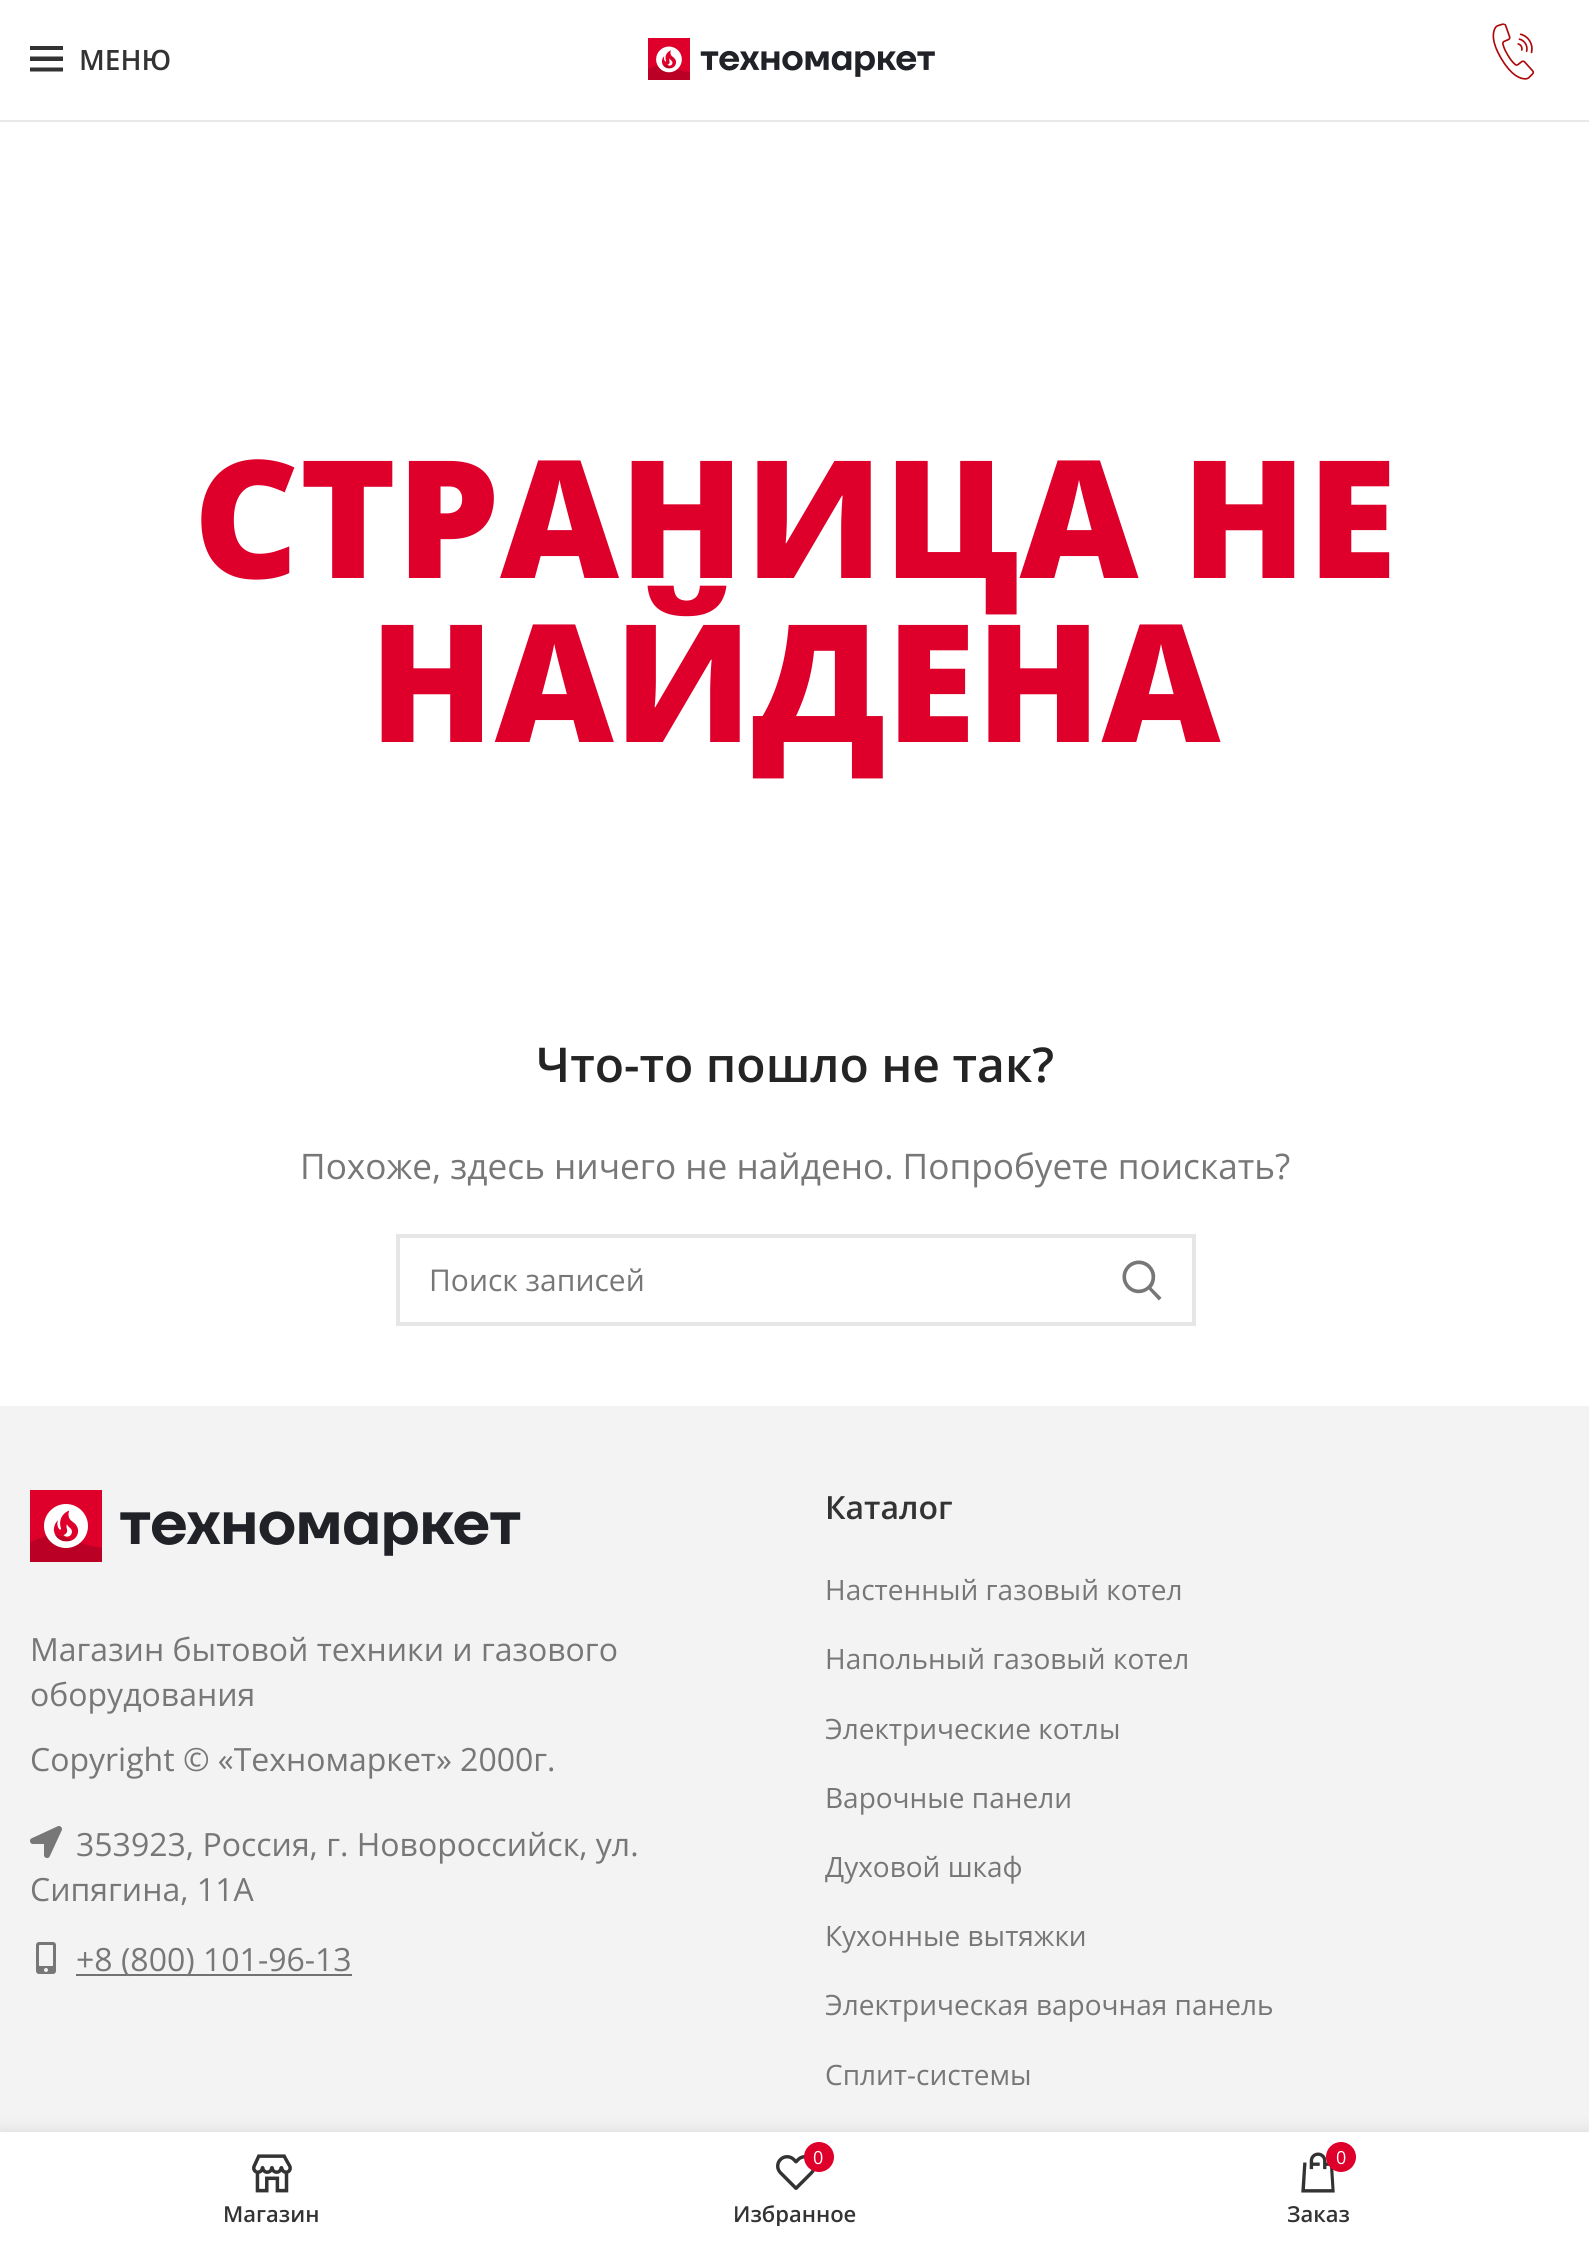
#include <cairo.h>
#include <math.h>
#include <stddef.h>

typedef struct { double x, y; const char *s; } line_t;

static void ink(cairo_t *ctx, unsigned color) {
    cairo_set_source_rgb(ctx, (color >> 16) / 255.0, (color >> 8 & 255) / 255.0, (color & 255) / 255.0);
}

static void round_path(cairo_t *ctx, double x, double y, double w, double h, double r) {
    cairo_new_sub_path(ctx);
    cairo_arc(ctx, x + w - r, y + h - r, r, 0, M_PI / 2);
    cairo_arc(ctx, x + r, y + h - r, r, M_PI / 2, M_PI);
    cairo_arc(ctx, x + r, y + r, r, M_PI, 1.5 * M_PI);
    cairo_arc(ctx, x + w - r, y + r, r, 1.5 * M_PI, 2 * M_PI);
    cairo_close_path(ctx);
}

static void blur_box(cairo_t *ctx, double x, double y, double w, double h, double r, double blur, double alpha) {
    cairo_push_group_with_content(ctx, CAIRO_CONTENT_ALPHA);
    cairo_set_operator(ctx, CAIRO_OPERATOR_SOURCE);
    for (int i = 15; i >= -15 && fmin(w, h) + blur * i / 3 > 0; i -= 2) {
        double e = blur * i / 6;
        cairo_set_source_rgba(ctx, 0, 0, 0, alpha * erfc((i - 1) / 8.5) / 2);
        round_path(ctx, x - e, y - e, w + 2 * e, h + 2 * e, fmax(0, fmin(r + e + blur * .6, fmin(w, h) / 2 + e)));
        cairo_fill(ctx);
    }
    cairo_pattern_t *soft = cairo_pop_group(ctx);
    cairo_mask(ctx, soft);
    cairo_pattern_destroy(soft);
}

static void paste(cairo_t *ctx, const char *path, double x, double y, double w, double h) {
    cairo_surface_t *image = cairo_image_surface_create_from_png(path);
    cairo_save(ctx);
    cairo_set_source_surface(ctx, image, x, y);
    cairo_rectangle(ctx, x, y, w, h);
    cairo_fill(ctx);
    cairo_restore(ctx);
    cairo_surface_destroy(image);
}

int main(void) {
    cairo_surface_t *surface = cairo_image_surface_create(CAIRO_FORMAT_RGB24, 1589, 2242);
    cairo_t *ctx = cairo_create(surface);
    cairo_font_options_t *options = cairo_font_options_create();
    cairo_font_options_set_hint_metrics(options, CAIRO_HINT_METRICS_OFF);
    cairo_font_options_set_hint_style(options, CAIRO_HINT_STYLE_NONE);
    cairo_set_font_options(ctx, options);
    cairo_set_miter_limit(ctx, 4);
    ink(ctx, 0xFFFFFF);
    cairo_paint(ctx);
    ink(ctx, 0xE8E8E8);
    cairo_rectangle(ctx, 0, 120, 1589, 2);
    cairo_fill(ctx);
    ink(ctx, 0x333333);
    cairo_new_path(ctx);
    cairo_move_to(ctx, 30, 46);
    cairo_line_to(ctx, 63, 46);
    cairo_line_to(ctx, 63, 50);
    cairo_line_to(ctx, 30, 50);
    cairo_close_path(ctx);
    cairo_move_to(ctx, 30, 56.5);
    cairo_line_to(ctx, 63, 56.5);
    cairo_line_to(ctx, 63, 61);
    cairo_line_to(ctx, 30, 61);
    cairo_close_path(ctx);
    cairo_move_to(ctx, 30, 67.5);
    cairo_line_to(ctx, 63, 67.5);
    cairo_line_to(ctx, 63, 71.5);
    cairo_line_to(ctx, 30, 71.5);
    cairo_close_path(ctx);
    cairo_fill(ctx);
    cairo_select_font_face(ctx, "Open Sans SemiBold", CAIRO_FONT_SLANT_NORMAL, CAIRO_FONT_WEIGHT_NORMAL);
    cairo_set_font_size(ctx, 28);
    cairo_move_to(ctx, 79, 70);
    cairo_show_text(ctx, "МЕНЮ");
    paste(ctx, "media/1.png", 648, 38, 287, 42);
    paste(ctx, "media/2.png", 1492, 23, 43, 57);
    cairo_select_font_face(ctx, "Open Sans ExtraBold", CAIRO_FONT_SLANT_NORMAL, CAIRO_FONT_WEIGHT_NORMAL);
    cairo_set_font_size(ctx, 164);
    ink(ctx, 0xDE002B);
    cairo_move_to(ctx, 193, 578);
    cairo_show_text(ctx, "СТРАНИЦА НЕ");
    cairo_move_to(ctx, 369, 742);
    cairo_show_text(ctx, "НАЙДЕНА");
    cairo_select_font_face(ctx, "Open Sans SemiBold", CAIRO_FONT_SLANT_NORMAL, CAIRO_FONT_WEIGHT_NORMAL);
    cairo_set_font_size(ctx, 48);
    ink(ctx, 0x242424);
    cairo_move_to(ctx, 536, 1082);
    cairo_show_text(ctx, "Что-то пошло не так?");
    cairo_select_font_face(ctx, "Open Sans", CAIRO_FONT_SLANT_NORMAL, CAIRO_FONT_WEIGHT_NORMAL);
    cairo_set_font_size(ctx, 35.2);
    ink(ctx, 0x777777);
    cairo_move_to(ctx, 300, 1179);
    cairo_show_text(ctx, "Похоже, здесь ничего не найдено. Попробуете поискать?");
    cairo_rectangle(ctx, 398, 1236, 796, 88);
    ink(ctx, 0xE6E6E6);
    cairo_set_line_width(ctx, 4);
    cairo_stroke(ctx);
    cairo_set_font_size(ctx, 30);
    ink(ctx, 0x777777);
    cairo_move_to(ctx, 429, 1291);
    cairo_show_text(ctx, "Поиск записей");
    paste(ctx, "media/3.png", 1122, 1260, 40, 41);
    ink(ctx, 0xF3F3F3);
    cairo_rectangle(ctx, 0, 1406, 1589, 726);
    cairo_fill(ctx);
    paste(ctx, "media/4.png", 30, 1490, 491, 72);
    cairo_set_font_size(ctx, 32);
    ink(ctx, 0x777777);
    {
        static const line_t items[] = {
            {30, 1661, "Магазин бытовой техники и газового"},
            {30, 1706, "оборудования"},
            {30, 1771, "Copyright © «Техномаркет» 2000г."},
        };
        for (size_t i = 0; i < sizeof items / sizeof *items; i++) {
            cairo_move_to(ctx, items[i].x, items[i].y);
            cairo_show_text(ctx, items[i].s);
        }
    }
    paste(ctx, "media/5.png", 30, 1826, 32, 32);
    cairo_move_to(ctx, 76, 1856);
    cairo_show_text(ctx, "353923, Россия, г. Новороссийск, ул.");
    cairo_move_to(ctx, 30, 1901);
    cairo_show_text(ctx, "Сипягина, 11А");
    paste(ctx, "media/6.png", 36, 1942, 20, 32);
    ink(ctx, 0x727272);
    cairo_rectangle(ctx, 76, 1974, 276, 2);
    cairo_fill(ctx);
    ink(ctx, 0x777777);
    cairo_move_to(ctx, 76, 1971);
    cairo_show_text(ctx, "+8 (800) 101-96-13");
    cairo_select_font_face(ctx, "Open Sans SemiBold", CAIRO_FONT_SLANT_NORMAL, CAIRO_FONT_WEIGHT_NORMAL);
    ink(ctx, 0x333333);
    cairo_move_to(ctx, 825, 1519);
    cairo_show_text(ctx, "Каталог");
    cairo_select_font_face(ctx, "Open Sans", CAIRO_FONT_SLANT_NORMAL, CAIRO_FONT_WEIGHT_NORMAL);
    cairo_set_font_size(ctx, 28);
    ink(ctx, 0x777777);
    {
        static const line_t items[] = {
            {825, 1600, "Настенный газовый котел"},
            {825, 1669, "Напольный газовый котел"},
            {825, 1739, "Электрические котлы"},
            {825, 1808, "Варочные панели"},
            {825, 1877, "Духовой шкаф"},
            {825, 1946, "Кухонные вытяжки"},
            {825, 2015, "Электрическая варочная панель"},
            {825, 2085, "Сплит-системы"},
        };
        for (size_t i = 0; i < sizeof items / sizeof *items; i++) {
            cairo_move_to(ctx, items[i].x, items[i].y);
            cairo_show_text(ctx, items[i].s);
        }
    }
    ink(ctx, 0x000000);
    blur_box(ctx, 0, 2132, 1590, 110, 0, 9, 0.12);
    ink(ctx, 0xFFFFFF);
    cairo_rectangle(ctx, 0, 2132, 1589, 110);
    cairo_fill(ctx);
    paste(ctx, "media/7.png", 252, 2154, 40, 39);
    cairo_select_font_face(ctx, "Open Sans SemiBold", CAIRO_FONT_SLANT_NORMAL, CAIRO_FONT_WEIGHT_NORMAL);
    cairo_set_font_size(ctx, 22);
    ink(ctx, 0x333333);
    cairo_move_to(ctx, 223, 2222);
    cairo_show_text(ctx, "Магазин");
    paste(ctx, "media/8.png", 776, 2155, 39, 35);
    ink(ctx, 0xDE002B);
    cairo_arc(ctx, 819, 2157, 15, 0, 2 * M_PI);
    cairo_fill(ctx);
    cairo_select_font_face(ctx, "Open Sans", CAIRO_FONT_SLANT_NORMAL, CAIRO_FONT_WEIGHT_NORMAL);
    cairo_set_font_size(ctx, 18);
    ink(ctx, 0xFFFFFF);
    cairo_move_to(ctx, 813, 2164);
    cairo_show_text(ctx, "0");
    cairo_save(ctx);
    cairo_rectangle(ctx, 554, 2200, 482, 26);
    cairo_clip(ctx);
    cairo_select_font_face(ctx, "Open Sans SemiBold", CAIRO_FONT_SLANT_NORMAL, CAIRO_FONT_WEIGHT_NORMAL);
    cairo_set_font_size(ctx, 22);
    ink(ctx, 0x333333);
    cairo_move_to(ctx, 733, 2222);
    cairo_show_text(ctx, "Избранное");
    cairo_restore(ctx);
    paste(ctx, "media/9.png", 1301, 2152, 34, 41);
    ink(ctx, 0xDE002B);
    cairo_arc(ctx, 1341, 2157, 15, 0, 2 * M_PI);
    cairo_fill(ctx);
    ink(ctx, 0xFFFFFF);
    cairo_move_to(ctx, 1336, 2164);
    cairo_show_text(ctx, "0");
    cairo_select_font_face(ctx, "Open Sans SemiBold", CAIRO_FONT_SLANT_NORMAL, CAIRO_FONT_WEIGHT_NORMAL);
    cairo_set_font_size(ctx, 22);
    ink(ctx, 0x333333);
    cairo_move_to(ctx, 1287, 2222);
    cairo_show_text(ctx, "Заказ");
    cairo_surface_write_to_png(surface, "image.png");
    cairo_font_options_destroy(options);
    cairo_destroy(ctx);
    cairo_surface_destroy(surface);
    return 0;
}
